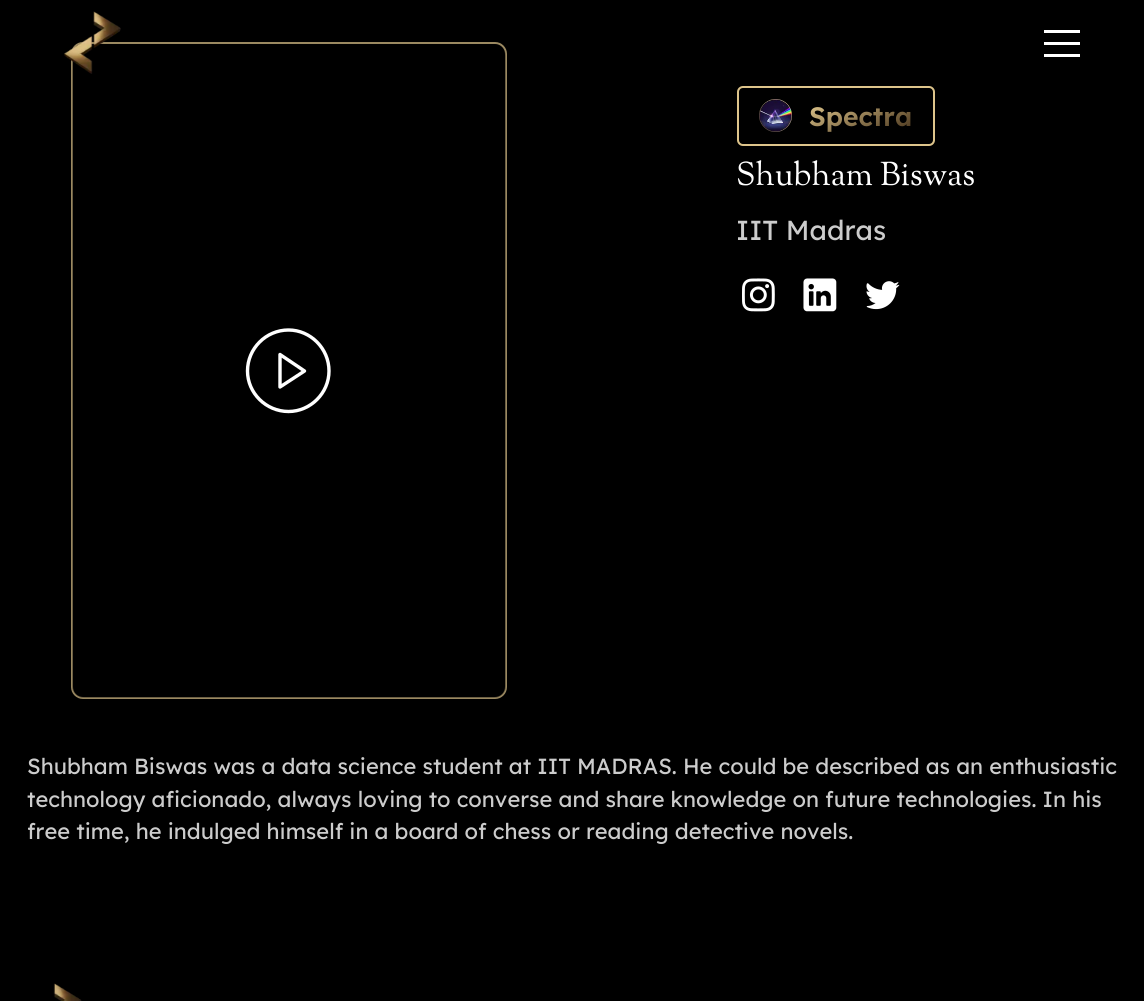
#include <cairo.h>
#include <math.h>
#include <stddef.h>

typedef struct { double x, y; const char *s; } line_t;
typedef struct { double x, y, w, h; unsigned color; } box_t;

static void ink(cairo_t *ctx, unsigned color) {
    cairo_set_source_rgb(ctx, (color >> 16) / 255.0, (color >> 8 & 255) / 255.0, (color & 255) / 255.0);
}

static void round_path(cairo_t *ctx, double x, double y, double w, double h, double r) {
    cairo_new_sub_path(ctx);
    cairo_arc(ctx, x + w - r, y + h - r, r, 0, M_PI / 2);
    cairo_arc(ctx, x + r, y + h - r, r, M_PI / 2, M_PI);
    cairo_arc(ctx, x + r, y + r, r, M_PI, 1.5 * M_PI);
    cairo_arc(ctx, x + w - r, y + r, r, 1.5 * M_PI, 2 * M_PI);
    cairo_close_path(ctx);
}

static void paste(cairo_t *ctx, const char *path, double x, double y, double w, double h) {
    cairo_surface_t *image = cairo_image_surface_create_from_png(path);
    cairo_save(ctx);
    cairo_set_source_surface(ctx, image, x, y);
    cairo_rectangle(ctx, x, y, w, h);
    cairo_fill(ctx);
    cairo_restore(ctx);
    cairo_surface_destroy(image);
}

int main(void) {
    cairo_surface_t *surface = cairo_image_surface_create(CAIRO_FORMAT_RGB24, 1144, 1001);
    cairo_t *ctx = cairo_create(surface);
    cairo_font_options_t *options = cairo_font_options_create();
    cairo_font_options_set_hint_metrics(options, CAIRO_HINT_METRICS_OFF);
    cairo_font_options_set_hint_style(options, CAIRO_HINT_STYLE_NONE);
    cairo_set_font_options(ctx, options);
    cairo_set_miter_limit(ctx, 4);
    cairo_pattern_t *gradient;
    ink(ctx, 0x000000);
    cairo_paint(ctx);
    round_path(ctx, 72, 43, 434, 655, 11);
    ink(ctx, 0x9B8961);
    cairo_stroke(ctx);
    cairo_set_source_rgba(ctx, 0, 0, 0, 0.3);
    round_path(ctx, 72, 44, 434, 654, 12);
    cairo_fill(ctx);
    paste(ctx, "media/1.png", 64, 11, 57, 63);
    {
        static const box_t items[] = {
            {1044, 30, 36, 3, 0xFFFFFF},
            {1044, 42, 36, 3, 0xFFFFFF},
            {1044, 54, 36, 3, 0xFFFFFF},
        };
        for (size_t i = 0; i < sizeof items / sizeof *items; i++) {
            ink(ctx, items[i].color);
            cairo_rectangle(ctx, items[i].x, items[i].y, items[i].w, items[i].h);
            cairo_fill(ctx);
        }
    }
    cairo_new_path(ctx);
    cairo_move_to(ctx, 288.5, 411.5);
    cairo_curve_to(ctx, 310.5, 411.5, 329, 393, 329, 371);
    cairo_curve_to(ctx, 329, 348.5, 310.5, 330, 288.5, 330);
    cairo_curve_to(ctx, 266, 330, 247.5, 348.5, 247.5, 371);
    cairo_curve_to(ctx, 247.5, 393, 266, 411.5, 288.5, 411.5);
    cairo_close_path(ctx);
    cairo_set_line_width(ctx, 3.4);
    cairo_set_line_cap(ctx, CAIRO_LINE_CAP_ROUND);
    cairo_set_line_join(ctx, CAIRO_LINE_JOIN_ROUND);
    cairo_stroke(ctx);
    cairo_new_path(ctx);
    cairo_move_to(ctx, 280, 354.5);
    cairo_line_to(ctx, 304.5, 371);
    cairo_line_to(ctx, 280, 387);
    cairo_close_path(ctx);
    cairo_stroke(ctx);
    round_path(ctx, 738, 87, 196, 58, 5);
    ink(ctx, 0xDDC48B);
    cairo_set_line_width(ctx, 2);
    cairo_set_line_cap(ctx, CAIRO_LINE_CAP_BUTT);
    cairo_set_line_join(ctx, CAIRO_LINE_JOIN_MITER);
    cairo_stroke(ctx);
    paste(ctx, "media/2.png", 759, 99, 33, 33);
    cairo_select_font_face(ctx, "Lexend SemiBold", CAIRO_FONT_SLANT_NORMAL, CAIRO_FONT_WEIGHT_NORMAL);
    cairo_set_font_size(ctx, 26.5);
    gradient = cairo_pattern_create_linear(845, 80, 876, 151);
    cairo_pattern_add_color_stop_rgba(gradient, 0.1, 0.867, 0.769, 0.545, 1);
    cairo_pattern_add_color_stop_rgba(gradient, 1, 0.251, 0.176, 0.086, 1);
    cairo_set_source(ctx, gradient);
    cairo_pattern_destroy(gradient);
    cairo_move_to(ctx, 809, 126);
    cairo_show_text(ctx, "Spectra");
    cairo_select_font_face(ctx, "Sorts Mill Goudy", CAIRO_FONT_SLANT_NORMAL, CAIRO_FONT_WEIGHT_NORMAL);
    cairo_set_font_size(ctx, 32.75);
    ink(ctx, 0xFFFFFF);
    cairo_move_to(ctx, 736, 185);
    cairo_show_text(ctx, "Shubham Biswas");
    cairo_select_font_face(ctx, "Lexend", CAIRO_FONT_SLANT_NORMAL, CAIRO_FONT_WEIGHT_NORMAL);
    cairo_set_font_size(ctx, 27.5);
    ink(ctx, 0xCCCCCC);
    cairo_move_to(ctx, 736, 240);
    cairo_show_text(ctx, "IIT Madras");
    paste(ctx, "media/3.png", 742, 278, 33, 34);
    paste(ctx, "media/4.png", 803, 278, 34, 34);
    paste(ctx, "media/5.png", 866, 281, 34, 29);
    cairo_set_font_size(ctx, 21.9);
    {
        static const line_t items[] = {
            {27, 774, "Shubham Biswas was a data science student at IIT MADRAS. He could be described as an enthusiastic"},
            {27, 807, "technology aficionado, always loving to converse and share knowledge on future technologies. In his"},
            {27, 839, "free time, he indulged himself in a board of chess or reading detective novels."},
        };
        for (size_t i = 0; i < sizeof items / sizeof *items; i++) {
            cairo_move_to(ctx, items[i].x, items[i].y);
            cairo_show_text(ctx, items[i].s);
        }
    }
    paste(ctx, "media/6.png", 53, 983, 29, 18);
    cairo_surface_write_to_png(surface, "image.png");
    cairo_font_options_destroy(options);
    cairo_destroy(ctx);
    cairo_surface_destroy(surface);
    return 0;
}
